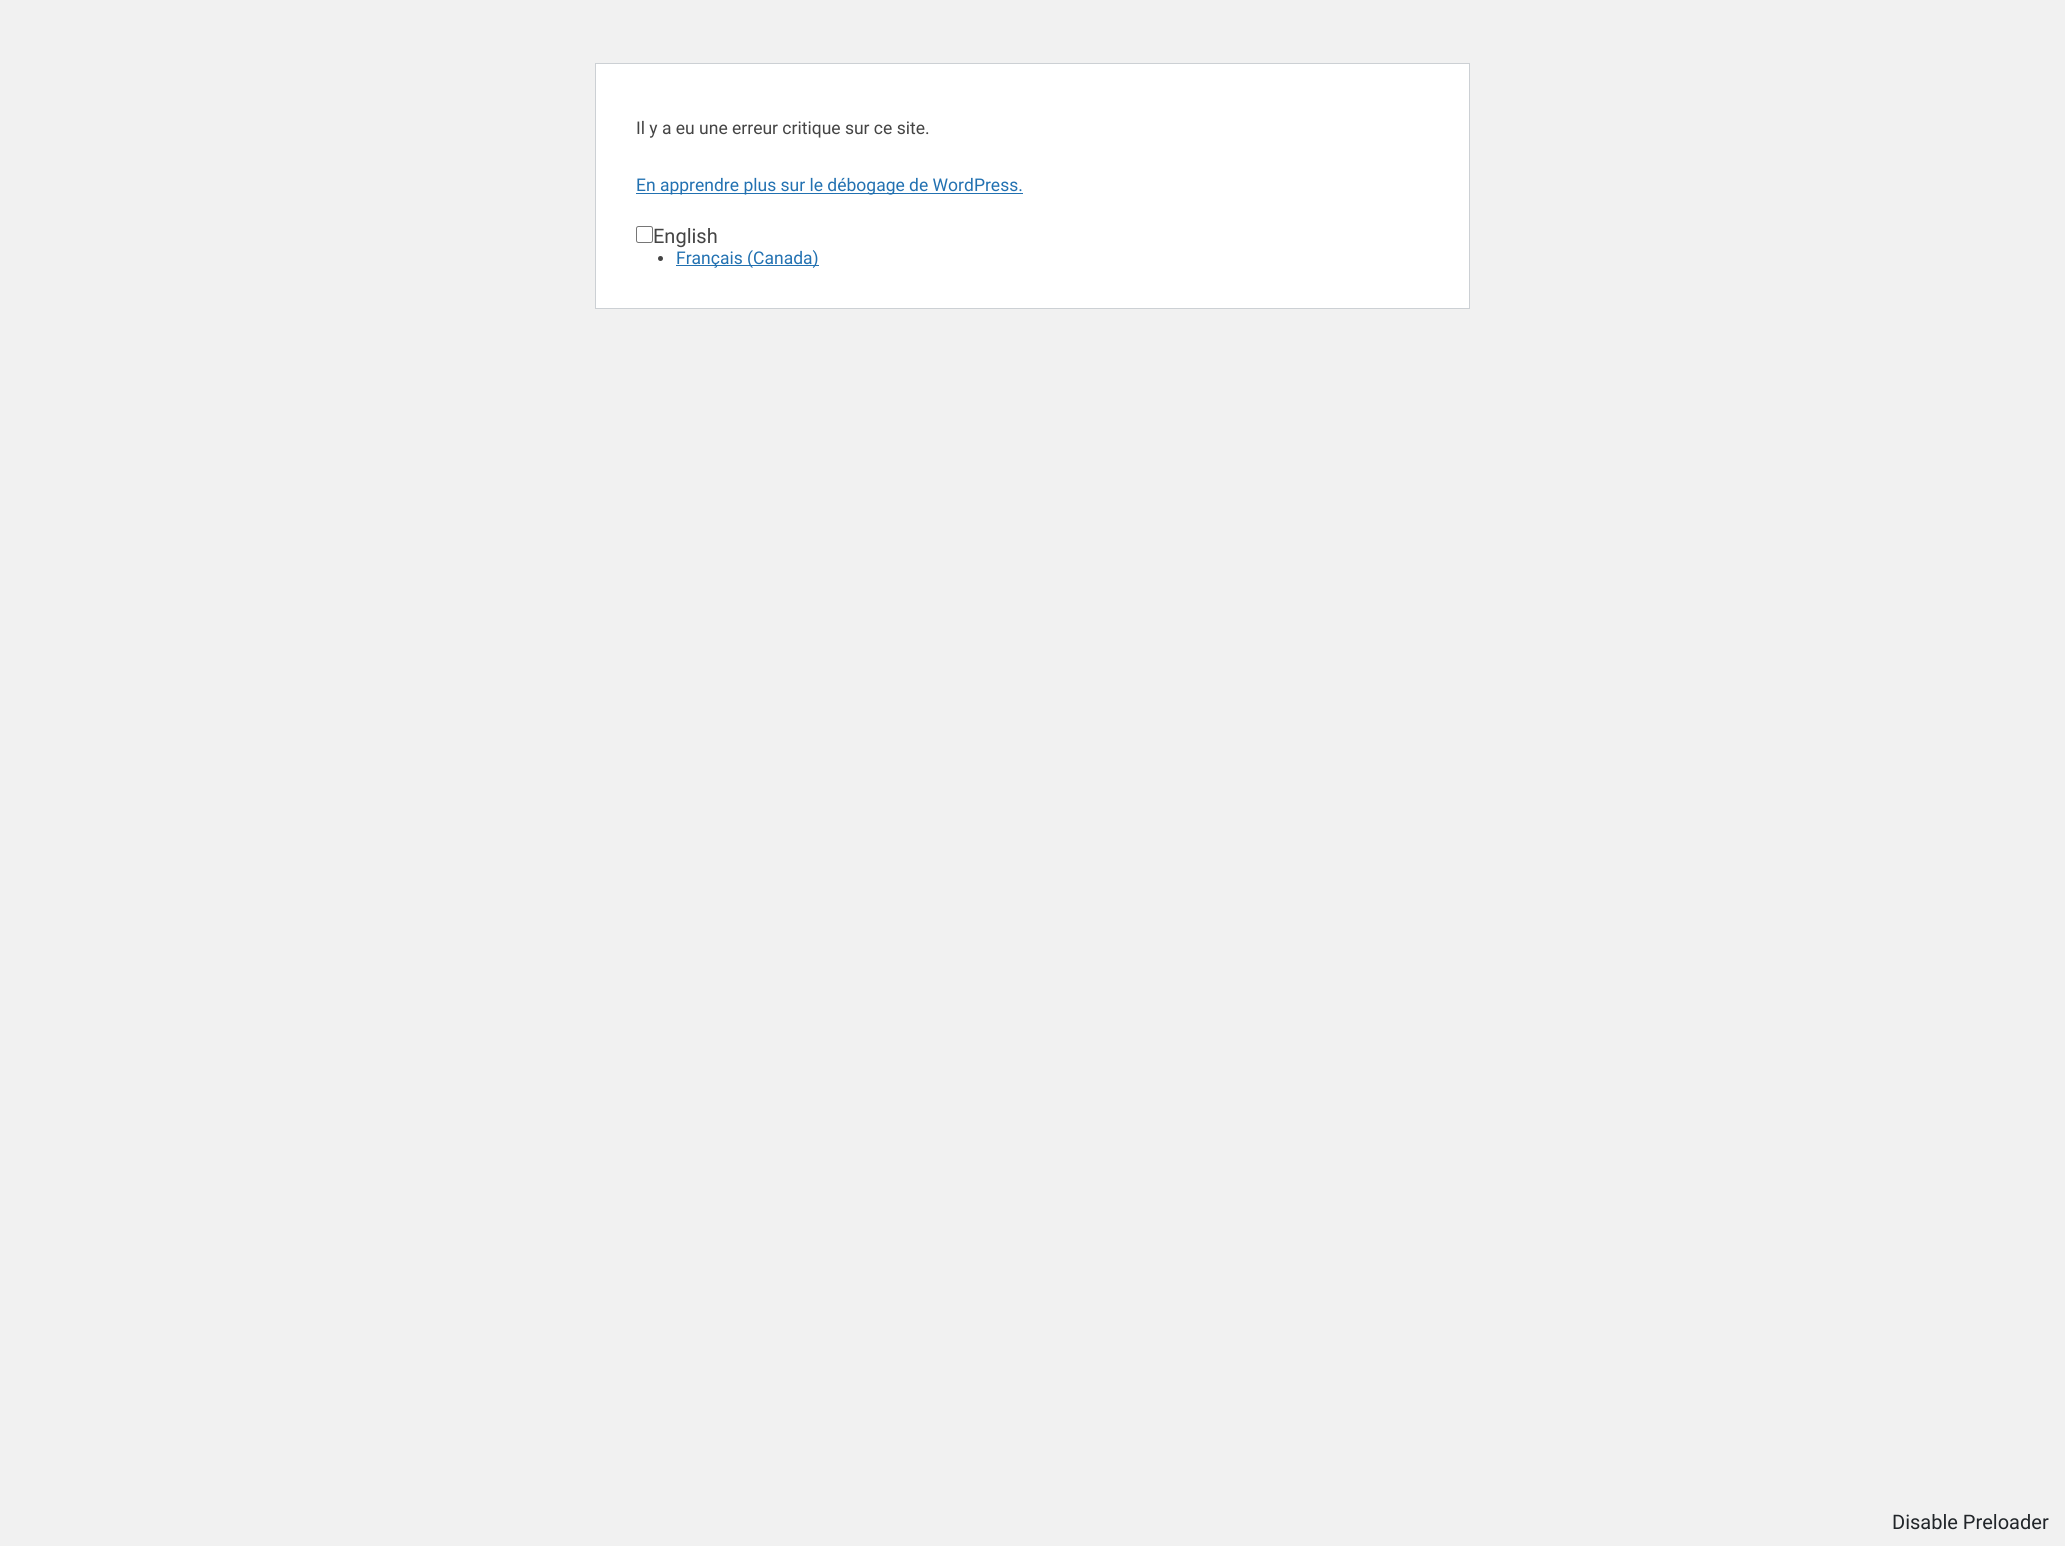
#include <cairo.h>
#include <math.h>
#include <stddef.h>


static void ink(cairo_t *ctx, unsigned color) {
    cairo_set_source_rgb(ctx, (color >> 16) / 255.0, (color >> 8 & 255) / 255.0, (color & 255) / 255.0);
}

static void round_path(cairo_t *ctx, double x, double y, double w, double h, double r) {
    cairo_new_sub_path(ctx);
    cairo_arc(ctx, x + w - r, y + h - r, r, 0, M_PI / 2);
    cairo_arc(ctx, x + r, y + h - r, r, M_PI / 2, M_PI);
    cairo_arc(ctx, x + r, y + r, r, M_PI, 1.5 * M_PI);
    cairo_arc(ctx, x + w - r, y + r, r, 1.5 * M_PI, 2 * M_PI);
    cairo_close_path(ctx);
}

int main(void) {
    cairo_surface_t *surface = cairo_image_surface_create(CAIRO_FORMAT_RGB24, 2065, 1546);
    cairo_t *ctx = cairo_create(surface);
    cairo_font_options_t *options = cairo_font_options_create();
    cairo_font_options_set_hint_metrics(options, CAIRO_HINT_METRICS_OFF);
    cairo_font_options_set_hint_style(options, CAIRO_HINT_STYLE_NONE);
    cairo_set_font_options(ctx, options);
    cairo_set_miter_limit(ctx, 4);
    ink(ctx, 0xF1F1F1);
    cairo_paint(ctx);
    ink(ctx, 0xFFFFFF);
    cairo_rectangle(ctx, 595.5, 63.5, 874, 245);
    cairo_fill_preserve(ctx);
    ink(ctx, 0xCCD0D4);
    cairo_set_line_width(ctx, 1);
    cairo_stroke(ctx);
    cairo_select_font_face(ctx, "Roboto", CAIRO_FONT_SLANT_NORMAL, CAIRO_FONT_WEIGHT_NORMAL);
    cairo_set_font_size(ctx, 17.5);
    ink(ctx, 0x444444);
    cairo_move_to(ctx, 636, 134);
    cairo_show_text(ctx, "Il y a eu une erreur critique sur ce site.");
    ink(ctx, 0x2271B1);
    cairo_rectangle(ctx, 636, 193, 387, 1);
    cairo_fill(ctx);
    cairo_move_to(ctx, 636, 191);
    cairo_show_text(ctx, "En apprendre plus sur le débogage de WordPress.");
    round_path(ctx, 636.5, 226.5, 16, 16, 2);
    ink(ctx, 0x767676);
    cairo_stroke(ctx);
    cairo_set_font_size(ctx, 20);
    ink(ctx, 0x444444);
    cairo_move_to(ctx, 653, 243);
    cairo_show_text(ctx, "English");
    cairo_new_path(ctx);
    cairo_arc(ctx, 660.5, 258.5, 2.5, 0, 2 * M_PI);
    cairo_fill(ctx);
    ink(ctx, 0x2271B1);
    cairo_rectangle(ctx, 676, 265, 143, 1);
    cairo_fill(ctx);
    cairo_set_font_size(ctx, 17.5);
    cairo_move_to(ctx, 676, 264);
    cairo_show_text(ctx, "Français (Canada)");
    cairo_set_font_size(ctx, 20);
    ink(ctx, 0x212529);
    cairo_move_to(ctx, 1892, 1529);
    cairo_show_text(ctx, "Disable Preloader");
    cairo_surface_write_to_png(surface, "image.png");
    cairo_font_options_destroy(options);
    cairo_destroy(ctx);
    cairo_surface_destroy(surface);
    return 0;
}
